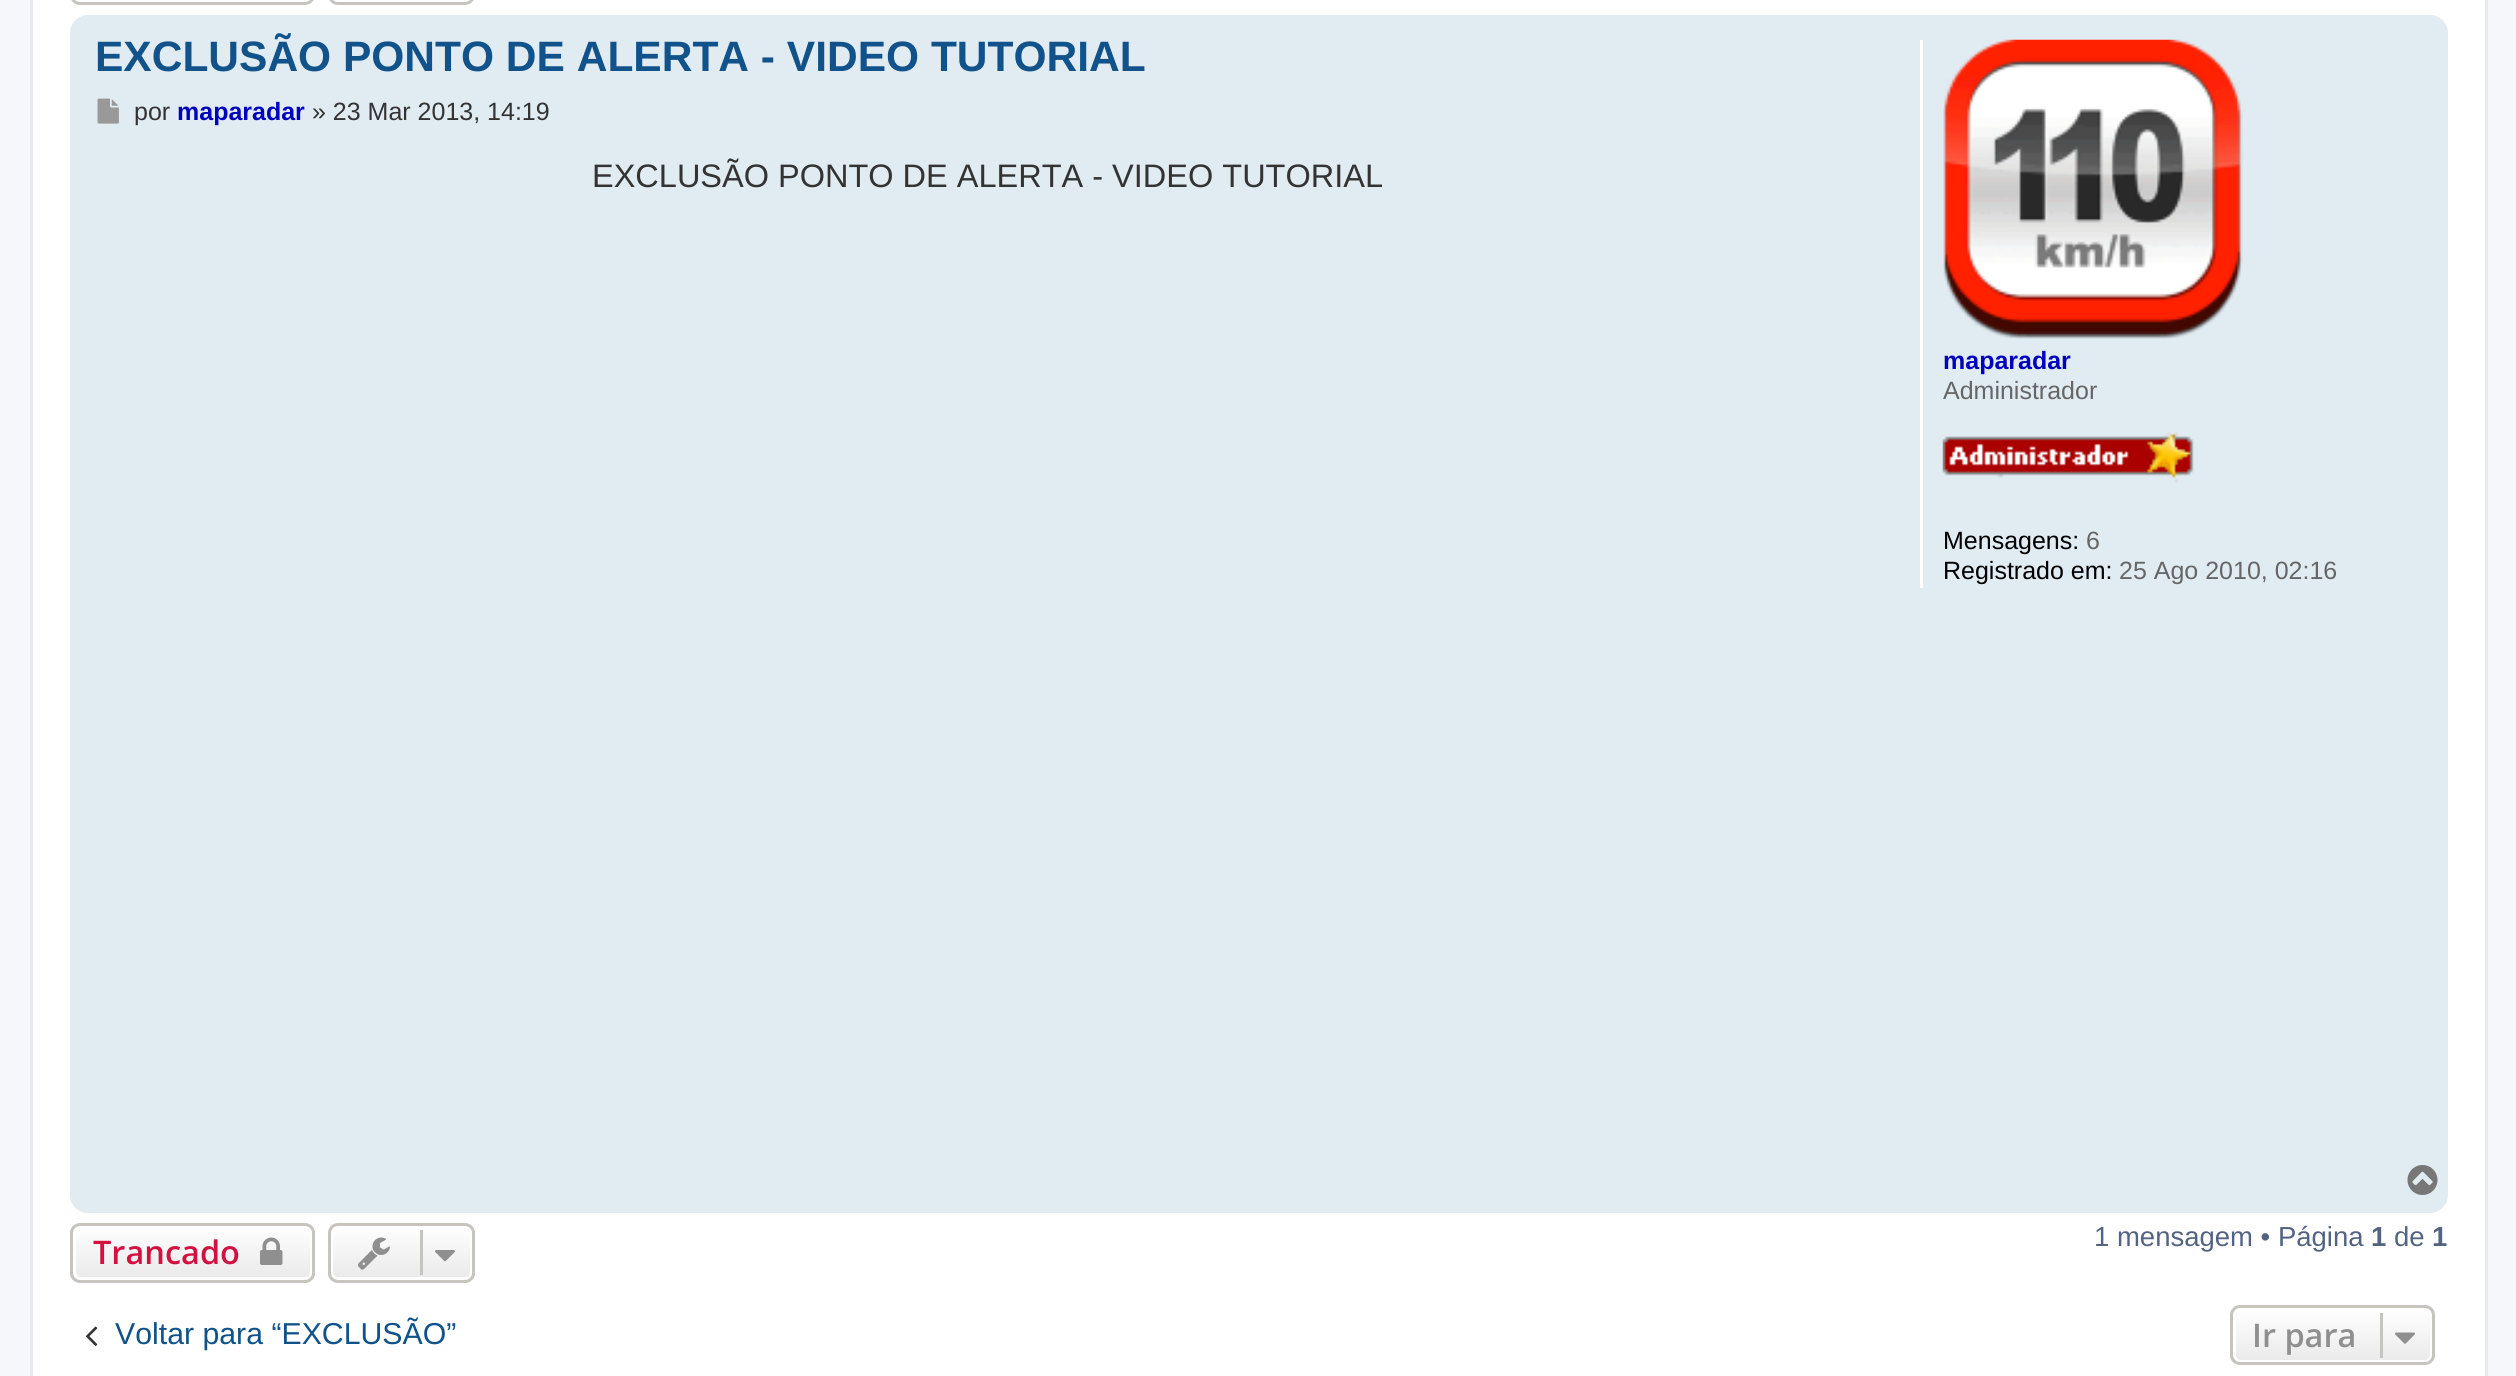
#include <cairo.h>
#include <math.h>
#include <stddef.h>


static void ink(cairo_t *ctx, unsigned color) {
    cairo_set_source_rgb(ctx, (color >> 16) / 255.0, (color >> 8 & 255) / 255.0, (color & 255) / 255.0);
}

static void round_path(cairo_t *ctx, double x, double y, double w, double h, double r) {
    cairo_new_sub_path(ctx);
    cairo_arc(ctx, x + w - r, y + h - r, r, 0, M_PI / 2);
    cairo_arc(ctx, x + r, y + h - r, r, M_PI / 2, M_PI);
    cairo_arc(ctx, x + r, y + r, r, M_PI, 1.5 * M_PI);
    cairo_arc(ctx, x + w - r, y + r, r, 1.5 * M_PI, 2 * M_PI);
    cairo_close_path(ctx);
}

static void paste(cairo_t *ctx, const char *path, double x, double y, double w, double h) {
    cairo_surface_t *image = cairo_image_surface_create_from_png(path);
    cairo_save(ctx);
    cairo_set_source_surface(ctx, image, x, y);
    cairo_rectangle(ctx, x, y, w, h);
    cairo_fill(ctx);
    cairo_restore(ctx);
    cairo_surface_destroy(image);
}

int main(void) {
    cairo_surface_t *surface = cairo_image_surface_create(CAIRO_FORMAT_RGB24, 2516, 1376);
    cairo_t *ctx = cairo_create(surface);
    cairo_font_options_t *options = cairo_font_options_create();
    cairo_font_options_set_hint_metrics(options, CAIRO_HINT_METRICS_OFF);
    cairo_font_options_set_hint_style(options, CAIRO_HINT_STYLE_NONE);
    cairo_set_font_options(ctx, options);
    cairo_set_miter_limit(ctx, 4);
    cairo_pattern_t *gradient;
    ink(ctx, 0xF5F7FA);
    cairo_paint(ctx);
    ink(ctx, 0xFFFFFF);
    cairo_rectangle(ctx, 31.5, -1.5, 2455, 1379);
    cairo_fill_preserve(ctx);
    ink(ctx, 0xE6E9ED);
    cairo_set_line_width(ctx, 3);
    cairo_stroke(ctx);
    round_path(ctx, 71.5, -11.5, 242, 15, 8.5);
    ink(ctx, 0xC7C3BF);
    cairo_stroke(ctx);
    round_path(ctx, 329.5, -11.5, 144, 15, 8.5);
    cairo_stroke(ctx);
    ink(ctx, 0xE1EBF2);
    round_path(ctx, 70, 15, 2378, 1198, 18);
    cairo_fill(ctx);
    cairo_select_font_face(ctx, "Liberation Sans", CAIRO_FONT_SLANT_NORMAL, CAIRO_FONT_WEIGHT_BOLD);
    cairo_set_font_size(ctx, 42.5);
    ink(ctx, 0x105289);
    cairo_move_to(ctx, 95, 71);
    cairo_show_text(ctx, "EXCLUSÃO PONTO DE ALERTA - VIDEO TUTORIAL");
    paste(ctx, "media/1.png", 97, 98, 22, 26);
    cairo_select_font_face(ctx, "Liberation Sans", CAIRO_FONT_SLANT_NORMAL, CAIRO_FONT_WEIGHT_NORMAL);
    cairo_set_font_size(ctx, 25);
    ink(ctx, 0x333333);
    cairo_move_to(ctx, 134, 120);
    cairo_show_text(ctx, "por");
    cairo_select_font_face(ctx, "Liberation Sans", CAIRO_FONT_SLANT_NORMAL, CAIRO_FONT_WEIGHT_BOLD);
    ink(ctx, 0x0000BF);
    cairo_move_to(ctx, 177, 120);
    cairo_show_text(ctx, "maparadar");
    cairo_select_font_face(ctx, "Liberation Sans", CAIRO_FONT_SLANT_NORMAL, CAIRO_FONT_WEIGHT_NORMAL);
    ink(ctx, 0x333333);
    cairo_move_to(ctx, 312, 120);
    cairo_show_text(ctx, "» 23 Mar 2013, 14:19");
    cairo_set_font_size(ctx, 32.5);
    cairo_move_to(ctx, 592, 187);
    cairo_show_text(ctx, "EXCLUSÃO PONTO DE ALERTA - VIDEO TUTORIAL");
    ink(ctx, 0xFFFFFF);
    cairo_rectangle(ctx, 1920, 40, 3, 548);
    cairo_fill(ctx);
    paste(ctx, "media/2.png", 1943, 39, 300, 300);
    cairo_select_font_face(ctx, "Liberation Sans", CAIRO_FONT_SLANT_NORMAL, CAIRO_FONT_WEIGHT_BOLD);
    cairo_set_font_size(ctx, 25);
    ink(ctx, 0x0000BF);
    cairo_move_to(ctx, 1943, 369);
    cairo_show_text(ctx, "maparadar");
    cairo_select_font_face(ctx, "Liberation Sans", CAIRO_FONT_SLANT_NORMAL, CAIRO_FONT_WEIGHT_NORMAL);
    ink(ctx, 0x666666);
    cairo_move_to(ctx, 1943, 399);
    cairo_show_text(ctx, "Administrador");
    paste(ctx, "media/3.png", 1942, 432, 252, 51);
    ink(ctx, 0x000000);
    cairo_move_to(ctx, 1943, 549);
    cairo_show_text(ctx, "Mensagens:");
    ink(ctx, 0x666666);
    cairo_move_to(ctx, 2086, 549);
    cairo_show_text(ctx, "6");
    ink(ctx, 0x000000);
    cairo_move_to(ctx, 1943, 579);
    cairo_show_text(ctx, "Registrado em:");
    ink(ctx, 0x666666);
    cairo_move_to(ctx, 2119, 579);
    cairo_show_text(ctx, "25 Ago 2010, 02:16");
    paste(ctx, "media/4.png", 2407, 1165, 31, 30);
    cairo_save(ctx);
    round_path(ctx, 70, 1223, 245, 60, 10);
    cairo_clip(ctx);
    gradient = cairo_pattern_create_linear(193, 1225, 193, 1280);
    cairo_pattern_add_color_stop_rgba(gradient, 0, 1, 1, 1, 1);
    cairo_pattern_add_color_stop_rgba(gradient, 1, 0.914, 0.914, 0.914, 1);
    cairo_set_source(ctx, gradient);
    cairo_pattern_destroy(gradient);
    cairo_rectangle(ctx, 70, 1225, 245, 55);
    cairo_fill(ctx);
    cairo_restore(ctx);
    round_path(ctx, 74.5, 1226.5, 237, 52, 6.5);
    ink(ctx, 0xFFFFFF);
    cairo_stroke(ctx);
    round_path(ctx, 71.5, 1224.5, 242, 57, 8.5);
    ink(ctx, 0xC7C3BF);
    cairo_stroke(ctx);
    cairo_select_font_face(ctx, "Open Sans SemiBold", CAIRO_FONT_SLANT_NORMAL, CAIRO_FONT_WEIGHT_NORMAL);
    cairo_set_font_size(ctx, 32.5);
    ink(ctx, 0xD31141);
    cairo_move_to(ctx, 93, 1264);
    cairo_show_text(ctx, "Trancado");
    paste(ctx, "media/5.png", 260, 1237, 23, 28);
    cairo_save(ctx);
    round_path(ctx, 328, 1223, 147, 60, 10);
    cairo_clip(ctx);
    gradient = cairo_pattern_create_linear(401, 1225, 401, 1280);
    cairo_pattern_add_color_stop_rgba(gradient, 0, 1, 1, 1, 1);
    cairo_pattern_add_color_stop_rgba(gradient, 1, 0.914, 0.914, 0.914, 1);
    cairo_set_source(ctx, gradient);
    cairo_pattern_destroy(gradient);
    cairo_rectangle(ctx, 328, 1225, 147, 55);
    cairo_fill(ctx);
    cairo_restore(ctx);
    round_path(ctx, 331.5, 1226.5, 140, 52, 6.5);
    ink(ctx, 0xFFFFFF);
    cairo_stroke(ctx);
    round_path(ctx, 329.5, 1224.5, 144, 57, 8.5);
    ink(ctx, 0xC7C3BF);
    cairo_stroke(ctx);
    paste(ctx, "media/6.png", 358, 1237, 32, 33);
    cairo_rectangle(ctx, 420, 1230, 3, 45);
    cairo_fill(ctx);
    paste(ctx, "media/7.png", 435, 1250, 20, 12);
    cairo_select_font_face(ctx, "Liberation Sans", CAIRO_FONT_SLANT_NORMAL, CAIRO_FONT_WEIGHT_NORMAL);
    cairo_set_font_size(ctx, 27.5);
    ink(ctx, 0x536482);
    cairo_move_to(ctx, 2094, 1246);
    cairo_show_text(ctx, "1 mensagem • Página");
    cairo_select_font_face(ctx, "Liberation Sans", CAIRO_FONT_SLANT_NORMAL, CAIRO_FONT_WEIGHT_BOLD);
    cairo_move_to(ctx, 2371, 1246);
    cairo_show_text(ctx, "1");
    cairo_select_font_face(ctx, "Liberation Sans", CAIRO_FONT_SLANT_NORMAL, CAIRO_FONT_WEIGHT_NORMAL);
    cairo_move_to(ctx, 2394, 1246);
    cairo_show_text(ctx, "de");
    cairo_select_font_face(ctx, "Liberation Sans", CAIRO_FONT_SLANT_NORMAL, CAIRO_FONT_WEIGHT_BOLD);
    cairo_move_to(ctx, 2432, 1246);
    cairo_show_text(ctx, "1");
    paste(ctx, "media/8.png", 85, 1326, 13, 20);
    cairo_select_font_face(ctx, "Liberation Sans", CAIRO_FONT_SLANT_NORMAL, CAIRO_FONT_WEIGHT_NORMAL);
    cairo_set_font_size(ctx, 30.25);
    ink(ctx, 0x105289);
    cairo_move_to(ctx, 115, 1344);
    cairo_show_text(ctx, "Voltar para “EXCLUSÃO”");
    cairo_save(ctx);
    round_path(ctx, 2230, 1305, 205, 60, 10);
    cairo_clip(ctx);
    gradient = cairo_pattern_create_linear(2333, 1308, 2333, 1363);
    cairo_pattern_add_color_stop_rgba(gradient, 0, 1, 1, 1, 1);
    cairo_pattern_add_color_stop_rgba(gradient, 1, 0.914, 0.914, 0.914, 1);
    cairo_set_source(ctx, gradient);
    cairo_pattern_destroy(gradient);
    cairo_rectangle(ctx, 2230, 1308, 205, 55);
    cairo_fill(ctx);
    cairo_restore(ctx);
    round_path(ctx, 2234.5, 1309.5, 197, 52, 6.5);
    ink(ctx, 0xFFFFFF);
    cairo_stroke(ctx);
    round_path(ctx, 2231.5, 1306.5, 202, 57, 8.5);
    ink(ctx, 0xC7C3BF);
    cairo_stroke(ctx);
    cairo_select_font_face(ctx, "Open Sans SemiBold", CAIRO_FONT_SLANT_NORMAL, CAIRO_FONT_WEIGHT_NORMAL);
    cairo_set_font_size(ctx, 32.5);
    ink(ctx, 0x8F8F8F);
    cairo_move_to(ctx, 2252, 1347);
    cairo_show_text(ctx, "Ir para");
    ink(ctx, 0xC7C3BF);
    cairo_rectangle(ctx, 2380, 1313, 3, 45);
    cairo_fill(ctx);
    paste(ctx, "media/9.png", 2395, 1332, 20, 12);
    cairo_surface_write_to_png(surface, "image.png");
    cairo_font_options_destroy(options);
    cairo_destroy(ctx);
    cairo_surface_destroy(surface);
    return 0;
}
